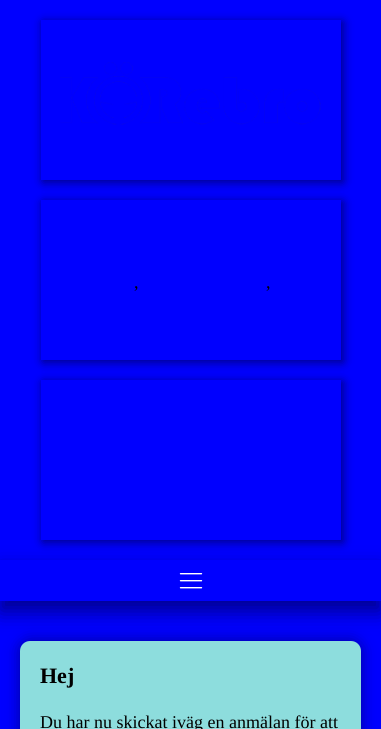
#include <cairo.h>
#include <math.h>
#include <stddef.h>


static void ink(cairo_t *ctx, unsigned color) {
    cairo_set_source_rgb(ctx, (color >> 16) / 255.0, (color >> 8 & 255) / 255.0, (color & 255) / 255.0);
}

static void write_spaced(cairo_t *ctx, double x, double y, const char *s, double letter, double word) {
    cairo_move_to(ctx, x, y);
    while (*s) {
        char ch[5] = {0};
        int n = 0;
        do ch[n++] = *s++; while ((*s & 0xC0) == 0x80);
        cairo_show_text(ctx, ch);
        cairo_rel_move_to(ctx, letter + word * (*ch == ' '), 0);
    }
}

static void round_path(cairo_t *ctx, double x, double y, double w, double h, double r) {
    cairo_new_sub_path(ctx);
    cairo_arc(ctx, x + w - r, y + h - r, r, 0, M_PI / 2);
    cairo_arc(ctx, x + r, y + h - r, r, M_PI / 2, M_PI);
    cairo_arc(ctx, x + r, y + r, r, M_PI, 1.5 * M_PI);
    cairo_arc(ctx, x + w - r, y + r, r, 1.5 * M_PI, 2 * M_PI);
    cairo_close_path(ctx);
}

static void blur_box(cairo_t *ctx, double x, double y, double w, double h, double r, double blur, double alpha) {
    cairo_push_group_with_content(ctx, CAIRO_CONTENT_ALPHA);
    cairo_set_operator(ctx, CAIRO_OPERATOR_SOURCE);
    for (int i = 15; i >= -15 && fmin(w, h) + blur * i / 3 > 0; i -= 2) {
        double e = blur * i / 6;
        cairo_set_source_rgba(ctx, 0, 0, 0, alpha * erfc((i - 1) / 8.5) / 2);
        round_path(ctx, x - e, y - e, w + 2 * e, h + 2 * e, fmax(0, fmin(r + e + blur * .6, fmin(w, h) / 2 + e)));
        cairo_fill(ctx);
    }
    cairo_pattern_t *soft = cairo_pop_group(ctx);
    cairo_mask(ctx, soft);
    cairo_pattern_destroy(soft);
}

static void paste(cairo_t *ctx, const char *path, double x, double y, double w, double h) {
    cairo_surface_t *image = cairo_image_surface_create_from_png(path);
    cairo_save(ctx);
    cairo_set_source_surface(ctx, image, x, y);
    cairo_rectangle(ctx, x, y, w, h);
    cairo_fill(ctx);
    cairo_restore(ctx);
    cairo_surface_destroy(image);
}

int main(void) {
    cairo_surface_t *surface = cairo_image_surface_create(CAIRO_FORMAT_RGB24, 381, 729);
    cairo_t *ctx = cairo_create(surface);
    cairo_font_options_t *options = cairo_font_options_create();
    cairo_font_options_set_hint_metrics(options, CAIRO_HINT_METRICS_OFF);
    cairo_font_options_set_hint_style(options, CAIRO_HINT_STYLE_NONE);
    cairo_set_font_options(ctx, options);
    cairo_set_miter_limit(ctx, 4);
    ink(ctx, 0x0000FF);
    cairo_paint(ctx);
    cairo_save(ctx);
    cairo_set_fill_rule(ctx, CAIRO_FILL_RULE_EVEN_ODD);
    cairo_new_path(ctx);
    cairo_move_to(ctx, 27, 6);
    cairo_line_to(ctx, 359, 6);
    cairo_line_to(ctx, 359, 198);
    cairo_line_to(ctx, 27, 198);
    cairo_close_path(ctx);
    cairo_move_to(ctx, 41, 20);
    cairo_line_to(ctx, 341, 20);
    cairo_line_to(ctx, 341, 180);
    cairo_line_to(ctx, 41, 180);
    cairo_close_path(ctx);
    cairo_clip(ctx);
    ink(ctx, 0x000000);
    blur_box(ctx, 43, 22, 300, 160, 0, 5, 0.5);
    cairo_restore(ctx);
    paste(ctx, "media/1.png", 60, 62, 261, 63);
    cairo_save(ctx);
    cairo_set_fill_rule(ctx, CAIRO_FILL_RULE_EVEN_ODD);
    cairo_new_path(ctx);
    cairo_move_to(ctx, 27, 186);
    cairo_line_to(ctx, 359, 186);
    cairo_line_to(ctx, 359, 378);
    cairo_line_to(ctx, 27, 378);
    cairo_close_path(ctx);
    cairo_move_to(ctx, 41, 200);
    cairo_line_to(ctx, 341, 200);
    cairo_line_to(ctx, 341, 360);
    cairo_line_to(ctx, 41, 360);
    cairo_close_path(ctx);
    cairo_clip(ctx);
    ink(ctx, 0x000000);
    blur_box(ctx, 43, 202, 300, 160, 0, 5, 0.5);
    cairo_restore(ctx);
    cairo_select_font_face(ctx, "Liberation Serif", CAIRO_FONT_SLANT_NORMAL, CAIRO_FONT_WEIGHT_NORMAL);
    cairo_set_font_size(ctx, 18);
    ink(ctx, 0x000000);
    write_spaced(ctx, 134, 288, ",", 1, 0);
    write_spaced(ctx, 266, 288, ",", 1, 0);
    cairo_save(ctx);
    cairo_set_fill_rule(ctx, CAIRO_FILL_RULE_EVEN_ODD);
    cairo_new_path(ctx);
    cairo_move_to(ctx, 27, 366);
    cairo_line_to(ctx, 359, 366);
    cairo_line_to(ctx, 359, 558);
    cairo_line_to(ctx, 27, 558);
    cairo_close_path(ctx);
    cairo_move_to(ctx, 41, 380);
    cairo_line_to(ctx, 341, 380);
    cairo_line_to(ctx, 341, 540);
    cairo_line_to(ctx, 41, 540);
    cairo_close_path(ctx);
    cairo_clip(ctx);
    ink(ctx, 0x000000);
    blur_box(ctx, 43, 382, 300, 160, 0, 5, 0.5);
    cairo_restore(ctx);
    ink(ctx, 0x000000);
    blur_box(ctx, 20, 641, 341, 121, 10, 7.5, 0.4);
    ink(ctx, 0x8DDDDD);
    round_path(ctx, 20, 641, 341, 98, 10);
    cairo_fill(ctx);
    ink(ctx, 0x000000);
    blur_box(ctx, 0, 570, 381, 41, 0, 10, 0.45);
    ink(ctx, 0x0000FF);
    cairo_rectangle(ctx, 0, 560, 381, 41);
    cairo_fill(ctx);
    paste(ctx, "media/2.png", 179, 573, 24, 16);
    cairo_select_font_face(ctx, "Liberation Serif", CAIRO_FONT_SLANT_NORMAL, CAIRO_FONT_WEIGHT_BOLD);
    cairo_set_font_size(ctx, 22);
    ink(ctx, 0x000000);
    cairo_move_to(ctx, 40, 683);
    cairo_show_text(ctx, "Hej");
    cairo_select_font_face(ctx, "Liberation Serif", CAIRO_FONT_SLANT_NORMAL, CAIRO_FONT_WEIGHT_NORMAL);
    cairo_set_font_size(ctx, 18);
    cairo_move_to(ctx, 40, 728);
    cairo_show_text(ctx, "Du har nu skickat iväg en anmälan för att");
    cairo_surface_write_to_png(surface, "image.png");
    cairo_font_options_destroy(options);
    cairo_destroy(ctx);
    cairo_surface_destroy(surface);
    return 0;
}
